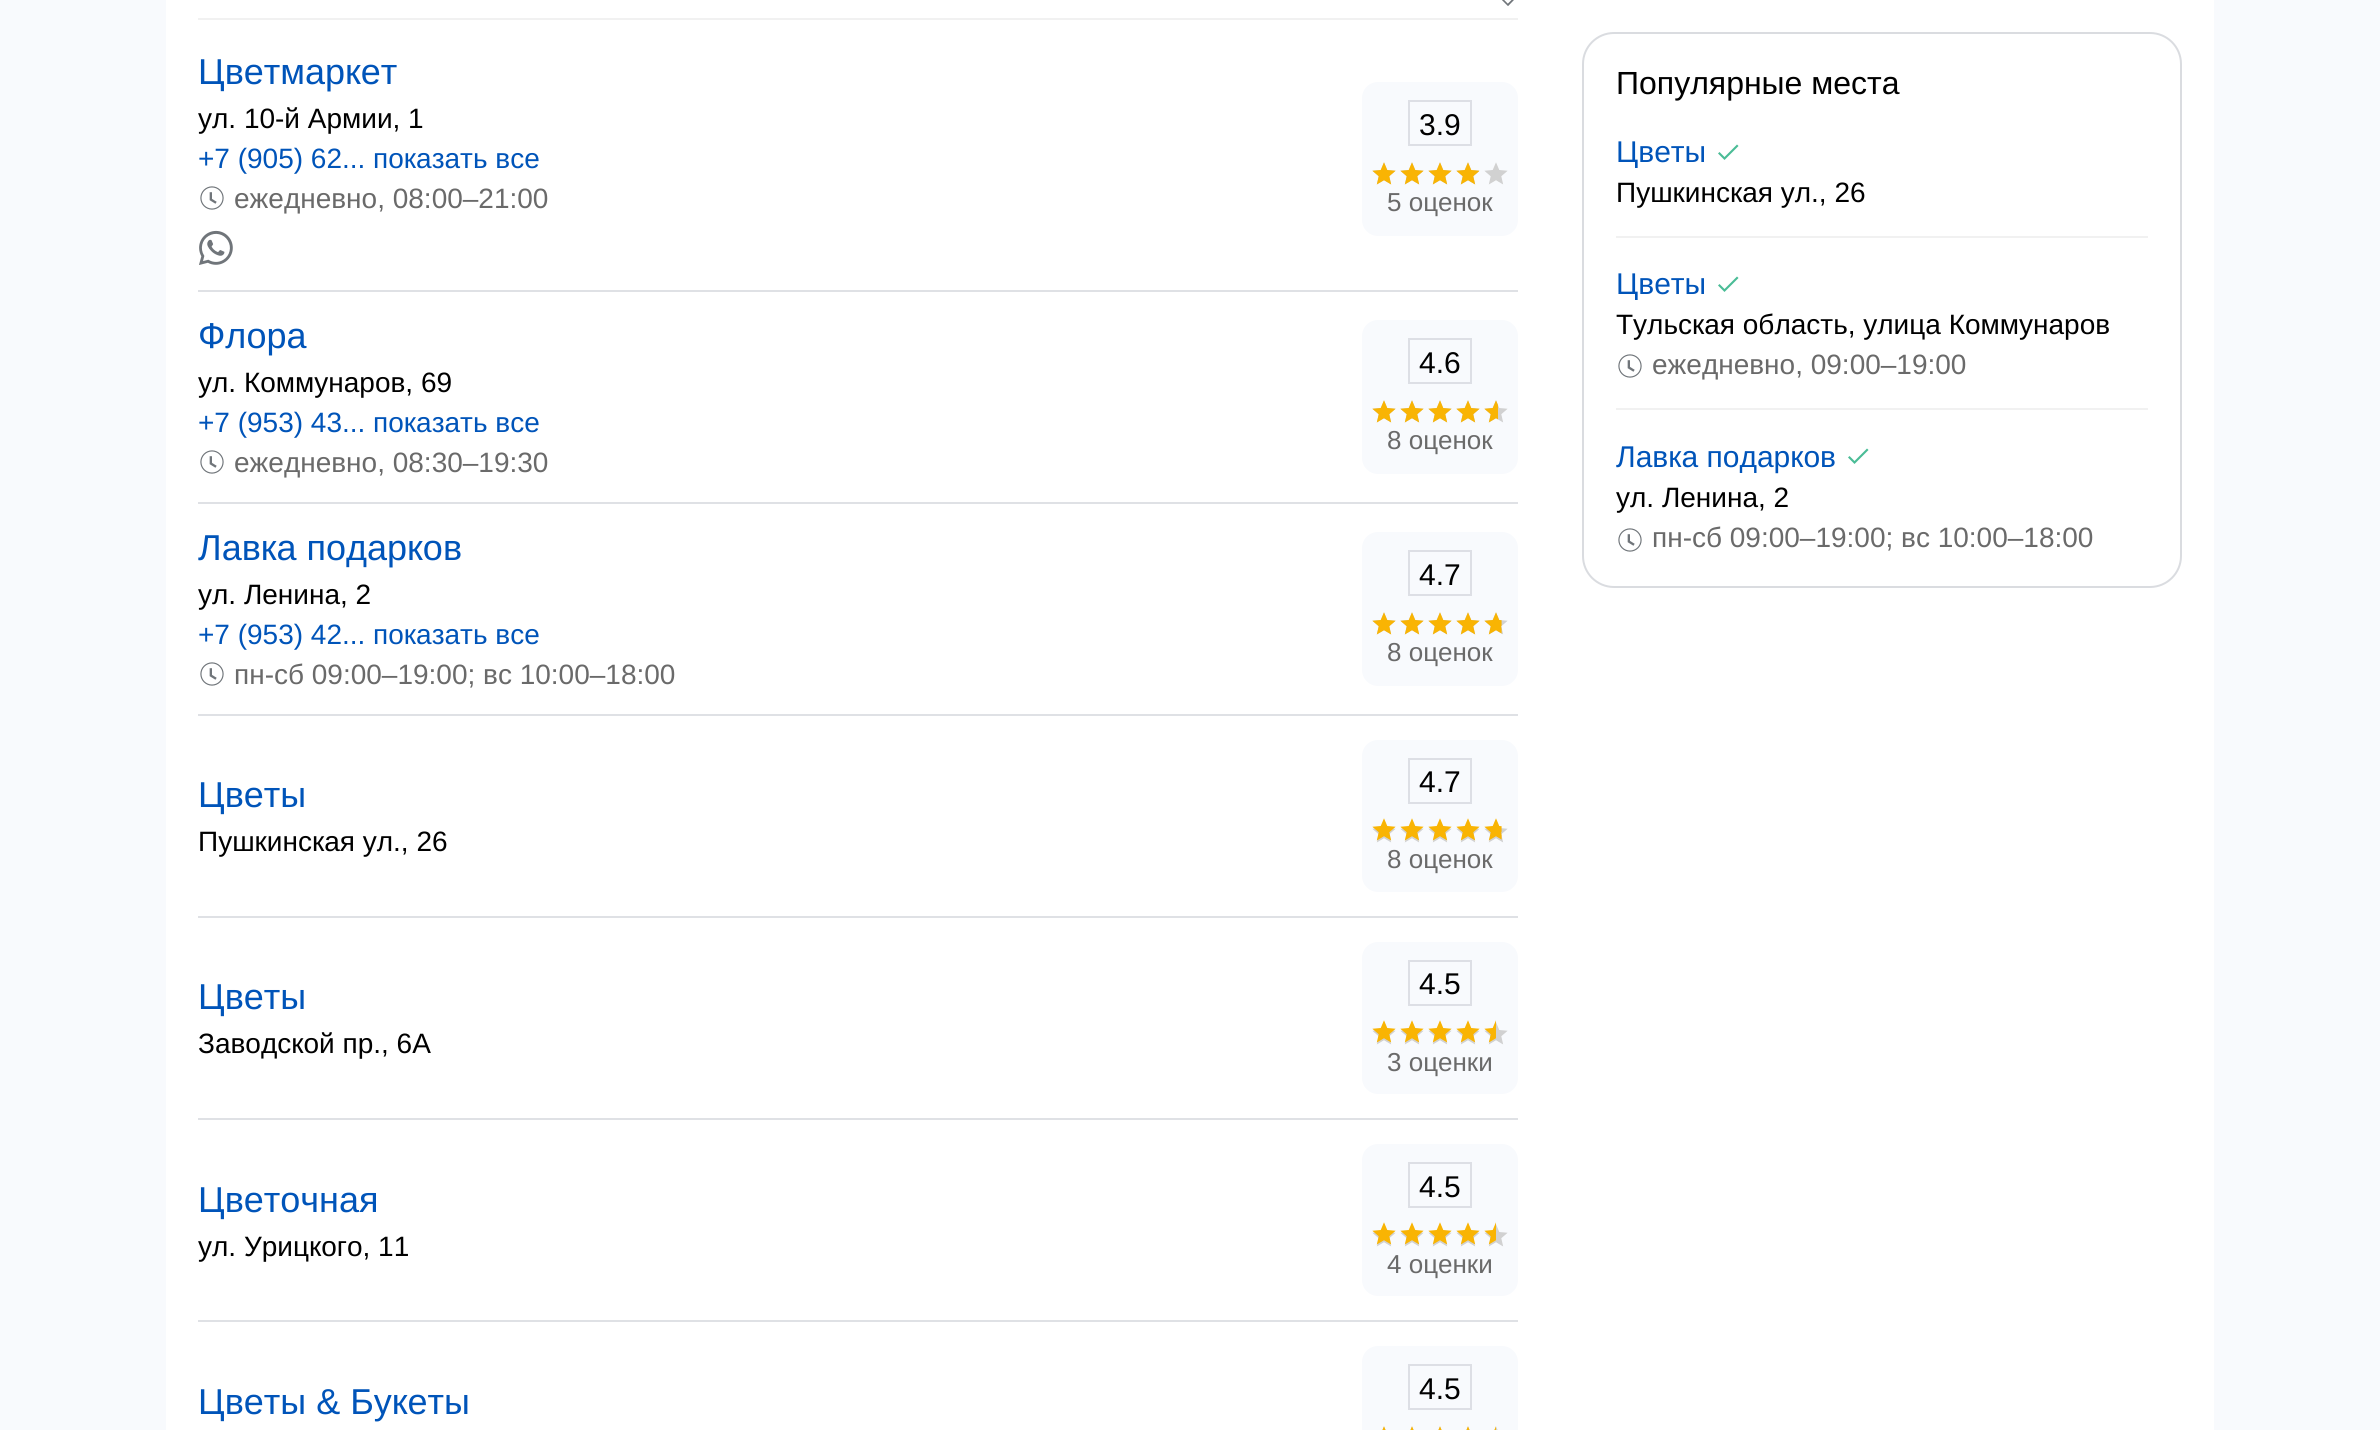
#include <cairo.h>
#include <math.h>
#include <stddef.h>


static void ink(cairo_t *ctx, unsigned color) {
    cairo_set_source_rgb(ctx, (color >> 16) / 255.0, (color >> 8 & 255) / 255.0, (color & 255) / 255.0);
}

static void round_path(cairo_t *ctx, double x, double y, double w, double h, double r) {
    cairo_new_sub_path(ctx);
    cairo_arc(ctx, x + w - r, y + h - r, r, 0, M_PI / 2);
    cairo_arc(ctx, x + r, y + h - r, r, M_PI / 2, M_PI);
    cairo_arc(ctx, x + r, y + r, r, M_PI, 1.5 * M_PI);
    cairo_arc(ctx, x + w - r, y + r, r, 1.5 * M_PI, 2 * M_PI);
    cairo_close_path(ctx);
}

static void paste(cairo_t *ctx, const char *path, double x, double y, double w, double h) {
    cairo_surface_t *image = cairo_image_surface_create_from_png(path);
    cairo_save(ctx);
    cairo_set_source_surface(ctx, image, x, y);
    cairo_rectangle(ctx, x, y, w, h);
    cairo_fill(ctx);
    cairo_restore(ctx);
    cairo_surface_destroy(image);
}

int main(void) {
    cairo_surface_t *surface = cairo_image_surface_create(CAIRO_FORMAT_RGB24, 2380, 1430);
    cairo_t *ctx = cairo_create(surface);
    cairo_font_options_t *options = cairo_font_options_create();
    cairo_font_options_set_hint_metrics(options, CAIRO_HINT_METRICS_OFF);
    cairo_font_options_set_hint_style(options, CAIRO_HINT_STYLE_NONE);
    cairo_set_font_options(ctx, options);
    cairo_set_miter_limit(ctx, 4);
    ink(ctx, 0xF8FAFD);
    cairo_paint(ctx);
    ink(ctx, 0xFFFFFF);
    cairo_rectangle(ctx, 166, 0, 2048, 1430);
    cairo_fill(ctx);
    ink(ctx, 0xF1F1F1);
    cairo_rectangle(ctx, 198, 18, 1320, 2);
    cairo_fill(ctx);
    paste(ctx, "media/1.png", 1502, 0, 12, 6);
    cairo_select_font_face(ctx, "Liberation Sans", CAIRO_FONT_SLANT_NORMAL, CAIRO_FONT_WEIGHT_NORMAL);
    cairo_set_font_size(ctx, 36);
    ink(ctx, 0x0054B9);
    cairo_move_to(ctx, 198, 84);
    cairo_show_text(ctx, "Цветмаркет");
    cairo_set_font_size(ctx, 28);
    ink(ctx, 0x000000);
    cairo_move_to(ctx, 198, 128);
    cairo_show_text(ctx, "ул. 10-й Армии, 1");
    ink(ctx, 0x0054B9);
    cairo_move_to(ctx, 198, 168);
    cairo_show_text(ctx, "+7 (905) 62... показать все");
    paste(ctx, "media/2.png", 200, 186, 24, 24);
    ink(ctx, 0x6A6A6A);
    cairo_move_to(ctx, 234, 208);
    cairo_show_text(ctx, "ежедневно, 08:00–21:00");
    paste(ctx, "media/3.png", 199, 230, 34, 35);
    ink(ctx, 0xF8FAFD);
    round_path(ctx, 1362, 82, 156, 154, 16);
    cairo_fill(ctx);
    cairo_rectangle(ctx, 1409, 101, 62, 44);
    ink(ctx, 0xDDDFE5);
    cairo_stroke(ctx);
    cairo_set_font_size(ctx, 30);
    ink(ctx, 0x000000);
    cairo_move_to(ctx, 1419, 135);
    cairo_show_text(ctx, "3.9");
    paste(ctx, "media/4.png", 1372, 162, 136, 23);
    paste(ctx, "media/5.png", 1372, 162, 108, 23);
    cairo_set_font_size(ctx, 26);
    ink(ctx, 0x6A6A6A);
    cairo_move_to(ctx, 1387, 211);
    cairo_show_text(ctx, "5 оценок");
    ink(ctx, 0xDFE1E5);
    cairo_rectangle(ctx, 198, 290, 1320, 2);
    cairo_fill(ctx);
    cairo_set_font_size(ctx, 36);
    ink(ctx, 0x0054B9);
    cairo_move_to(ctx, 198, 348);
    cairo_show_text(ctx, "Флора");
    cairo_set_font_size(ctx, 28);
    ink(ctx, 0x000000);
    cairo_move_to(ctx, 198, 392);
    cairo_show_text(ctx, "ул. Коммунаров, 69");
    ink(ctx, 0x0054B9);
    cairo_move_to(ctx, 198, 432);
    cairo_show_text(ctx, "+7 (953) 43... показать все");
    paste(ctx, "media/2.png", 200, 450, 24, 24);
    ink(ctx, 0x6A6A6A);
    cairo_move_to(ctx, 234, 472);
    cairo_show_text(ctx, "ежедневно, 08:30–19:30");
    ink(ctx, 0xF8FAFD);
    round_path(ctx, 1362, 320, 156, 154, 16);
    cairo_fill(ctx);
    cairo_rectangle(ctx, 1409, 339, 62, 44);
    ink(ctx, 0xDDDFE5);
    cairo_stroke(ctx);
    cairo_set_font_size(ctx, 30);
    ink(ctx, 0x000000);
    cairo_move_to(ctx, 1419, 373);
    cairo_show_text(ctx, "4.6");
    paste(ctx, "media/4.png", 1372, 400, 136, 23);
    paste(ctx, "media/6.png", 1372, 400, 126, 23);
    cairo_set_font_size(ctx, 26);
    ink(ctx, 0x6A6A6A);
    cairo_move_to(ctx, 1387, 449);
    cairo_show_text(ctx, "8 оценок");
    ink(ctx, 0xDFE1E5);
    cairo_rectangle(ctx, 198, 502, 1320, 2);
    cairo_fill(ctx);
    cairo_set_font_size(ctx, 36);
    ink(ctx, 0x0054B9);
    cairo_move_to(ctx, 198, 560);
    cairo_show_text(ctx, "Лавка подарков");
    cairo_set_font_size(ctx, 28);
    ink(ctx, 0x000000);
    cairo_move_to(ctx, 198, 604);
    cairo_show_text(ctx, "ул. Ленина, 2");
    ink(ctx, 0x0054B9);
    cairo_move_to(ctx, 198, 644);
    cairo_show_text(ctx, "+7 (953) 42... показать все");
    paste(ctx, "media/2.png", 200, 662, 24, 24);
    ink(ctx, 0x6A6A6A);
    cairo_move_to(ctx, 234, 684);
    cairo_show_text(ctx, "пн-сб 09:00–19:00; вс 10:00–18:00");
    ink(ctx, 0xF8FAFD);
    round_path(ctx, 1362, 532, 156, 154, 16);
    cairo_fill(ctx);
    cairo_rectangle(ctx, 1409, 551, 62, 44);
    ink(ctx, 0xDDDFE5);
    cairo_stroke(ctx);
    cairo_set_font_size(ctx, 30);
    ink(ctx, 0x000000);
    cairo_move_to(ctx, 1419, 585);
    cairo_show_text(ctx, "4.7");
    paste(ctx, "media/4.png", 1372, 612, 136, 23);
    paste(ctx, "media/7.png", 1372, 612, 130, 23);
    cairo_set_font_size(ctx, 26);
    ink(ctx, 0x6A6A6A);
    cairo_move_to(ctx, 1387, 661);
    cairo_show_text(ctx, "8 оценок");
    ink(ctx, 0xDFE1E5);
    cairo_rectangle(ctx, 198, 714, 1320, 2);
    cairo_fill(ctx);
    cairo_set_font_size(ctx, 36);
    ink(ctx, 0x0054B9);
    cairo_move_to(ctx, 198, 807);
    cairo_show_text(ctx, "Цветы");
    cairo_set_font_size(ctx, 28);
    ink(ctx, 0x000000);
    cairo_move_to(ctx, 198, 851);
    cairo_show_text(ctx, "Пушкинская ул., 26");
    ink(ctx, 0xF8FAFD);
    round_path(ctx, 1362, 740, 156, 152, 16);
    cairo_fill(ctx);
    cairo_rectangle(ctx, 1409, 759, 62, 44);
    ink(ctx, 0xDDDFE5);
    cairo_stroke(ctx);
    cairo_set_font_size(ctx, 30);
    ink(ctx, 0x000000);
    cairo_move_to(ctx, 1419, 792);
    cairo_show_text(ctx, "4.7");
    paste(ctx, "media/4.png", 1372, 820, 136, 23);
    paste(ctx, "media/8.png", 1372, 818, 130, 23);
    cairo_set_font_size(ctx, 26);
    ink(ctx, 0x6A6A6A);
    cairo_move_to(ctx, 1387, 868);
    cairo_show_text(ctx, "8 оценок");
    ink(ctx, 0xDFE1E5);
    cairo_rectangle(ctx, 198, 916, 1320, 2);
    cairo_fill(ctx);
    cairo_set_font_size(ctx, 36);
    ink(ctx, 0x0054B9);
    cairo_move_to(ctx, 198, 1009);
    cairo_show_text(ctx, "Цветы");
    cairo_set_font_size(ctx, 28);
    ink(ctx, 0x000000);
    cairo_move_to(ctx, 198, 1053);
    cairo_show_text(ctx, "Заводской пр., 6А");
    ink(ctx, 0xF8FAFD);
    round_path(ctx, 1362, 942, 156, 152, 16);
    cairo_fill(ctx);
    cairo_rectangle(ctx, 1409, 961, 62, 44);
    ink(ctx, 0xDDDFE5);
    cairo_stroke(ctx);
    cairo_set_font_size(ctx, 30);
    ink(ctx, 0x000000);
    cairo_move_to(ctx, 1419, 994);
    cairo_show_text(ctx, "4.5");
    paste(ctx, "media/4.png", 1372, 1022, 136, 23);
    paste(ctx, "media/9.png", 1372, 1020, 124, 23);
    cairo_set_font_size(ctx, 26);
    ink(ctx, 0x6A6A6A);
    cairo_move_to(ctx, 1387, 1071);
    cairo_show_text(ctx, "3 оценки");
    ink(ctx, 0xDFE1E5);
    cairo_rectangle(ctx, 198, 1118, 1320, 2);
    cairo_fill(ctx);
    cairo_set_font_size(ctx, 36);
    ink(ctx, 0x0054B9);
    cairo_move_to(ctx, 198, 1212);
    cairo_show_text(ctx, "Цветочная");
    cairo_set_font_size(ctx, 28);
    ink(ctx, 0x000000);
    cairo_move_to(ctx, 198, 1256);
    cairo_show_text(ctx, "ул. Урицкого, 11");
    ink(ctx, 0xF8FAFD);
    round_path(ctx, 1362, 1144, 156, 152, 16);
    cairo_fill(ctx);
    cairo_rectangle(ctx, 1409, 1163, 62, 44);
    ink(ctx, 0xDDDFE5);
    cairo_stroke(ctx);
    cairo_set_font_size(ctx, 30);
    ink(ctx, 0x000000);
    cairo_move_to(ctx, 1419, 1197);
    cairo_show_text(ctx, "4.5");
    paste(ctx, "media/4.png", 1372, 1224, 136, 23);
    paste(ctx, "media/9.png", 1372, 1222, 124, 23);
    cairo_set_font_size(ctx, 26);
    ink(ctx, 0x6A6A6A);
    cairo_move_to(ctx, 1387, 1273);
    cairo_show_text(ctx, "4 оценки");
    ink(ctx, 0xDFE1E5);
    cairo_rectangle(ctx, 198, 1320, 1320, 2);
    cairo_fill(ctx);
    cairo_set_font_size(ctx, 36);
    ink(ctx, 0x0054B9);
    cairo_move_to(ctx, 198, 1414);
    cairo_show_text(ctx, "Цветы & Букеты");
    ink(ctx, 0xF8FAFD);
    round_path(ctx, 1362, 1346, 156, 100, 16);
    cairo_fill(ctx);
    cairo_rectangle(ctx, 1409, 1365, 62, 44);
    ink(ctx, 0xDDDFE5);
    cairo_stroke(ctx);
    cairo_set_font_size(ctx, 30);
    ink(ctx, 0x000000);
    cairo_move_to(ctx, 1419, 1399);
    cairo_show_text(ctx, "4.5");
    paste(ctx, "media/10.png", 1382, 1426, 116, 4);
    paste(ctx, "media/11.png", 1382, 1426, 114, 4);
    round_path(ctx, 1583, 33, 598, 554, 31);
    ink(ctx, 0xDADCE0);
    cairo_stroke(ctx);
    cairo_set_font_size(ctx, 32);
    ink(ctx, 0x000000);
    cairo_move_to(ctx, 1616, 94);
    cairo_show_text(ctx, "Популярные места");
    cairo_set_font_size(ctx, 30);
    ink(ctx, 0x0054B9);
    cairo_move_to(ctx, 1616, 162);
    cairo_show_text(ctx, "Цветы");
    ink(ctx, 0x4ABC96);
    cairo_new_path(ctx);
    cairo_move_to(ctx, 1724.5, 157);
    cairo_line_to(ctx, 1719.5, 152);
    cairo_line_to(ctx, 1718, 153.5);
    cairo_line_to(ctx, 1724.5, 160);
    cairo_line_to(ctx, 1738.5, 146);
    cairo_line_to(ctx, 1737, 144.5);
    cairo_close_path(ctx);
    cairo_fill(ctx);
    cairo_set_font_size(ctx, 28);
    ink(ctx, 0x000000);
    cairo_move_to(ctx, 1616, 202);
    cairo_show_text(ctx, "Пушкинская ул., 26");
    ink(ctx, 0xF1F1F1);
    cairo_rectangle(ctx, 1616, 236, 532, 2);
    cairo_fill(ctx);
    cairo_set_font_size(ctx, 30);
    ink(ctx, 0x0054B9);
    cairo_move_to(ctx, 1616, 294);
    cairo_show_text(ctx, "Цветы");
    ink(ctx, 0x4ABC96);
    cairo_new_path(ctx);
    cairo_move_to(ctx, 1724.5, 289);
    cairo_line_to(ctx, 1719.5, 284);
    cairo_line_to(ctx, 1718, 285.5);
    cairo_line_to(ctx, 1724.5, 292);
    cairo_line_to(ctx, 1738.5, 278);
    cairo_line_to(ctx, 1737, 276.5);
    cairo_close_path(ctx);
    cairo_fill(ctx);
    cairo_set_font_size(ctx, 28);
    ink(ctx, 0x000000);
    cairo_move_to(ctx, 1616, 334);
    cairo_show_text(ctx, "Тульская область, улица Коммунаров");
    paste(ctx, "media/2.png", 1618, 354, 24, 24);
    ink(ctx, 0x6A6A6A);
    cairo_move_to(ctx, 1652, 374);
    cairo_show_text(ctx, "ежедневно, 09:00–19:00");
    ink(ctx, 0xF1F1F1);
    cairo_rectangle(ctx, 1616, 408, 532, 2);
    cairo_fill(ctx);
    cairo_set_font_size(ctx, 30);
    ink(ctx, 0x0054B9);
    cairo_move_to(ctx, 1616, 467);
    cairo_show_text(ctx, "Лавка подарков");
    ink(ctx, 0x4ABC96);
    cairo_new_path(ctx);
    cairo_move_to(ctx, 1854.5, 461);
    cairo_line_to(ctx, 1849.5, 456);
    cairo_line_to(ctx, 1848, 457.5);
    cairo_line_to(ctx, 1854.5, 464);
    cairo_line_to(ctx, 1868.5, 450);
    cairo_line_to(ctx, 1867, 448.5);
    cairo_close_path(ctx);
    cairo_fill(ctx);
    cairo_set_font_size(ctx, 28);
    ink(ctx, 0x000000);
    cairo_move_to(ctx, 1616, 507);
    cairo_show_text(ctx, "ул. Ленина, 2");
    paste(ctx, "media/2.png", 1618, 528, 24, 24);
    ink(ctx, 0x6A6A6A);
    cairo_move_to(ctx, 1652, 547);
    cairo_show_text(ctx, "пн-сб 09:00–19:00; вс 10:00–18:00");
    cairo_surface_write_to_png(surface, "image.png");
    cairo_font_options_destroy(options);
    cairo_destroy(ctx);
    cairo_surface_destroy(surface);
    return 0;
}
